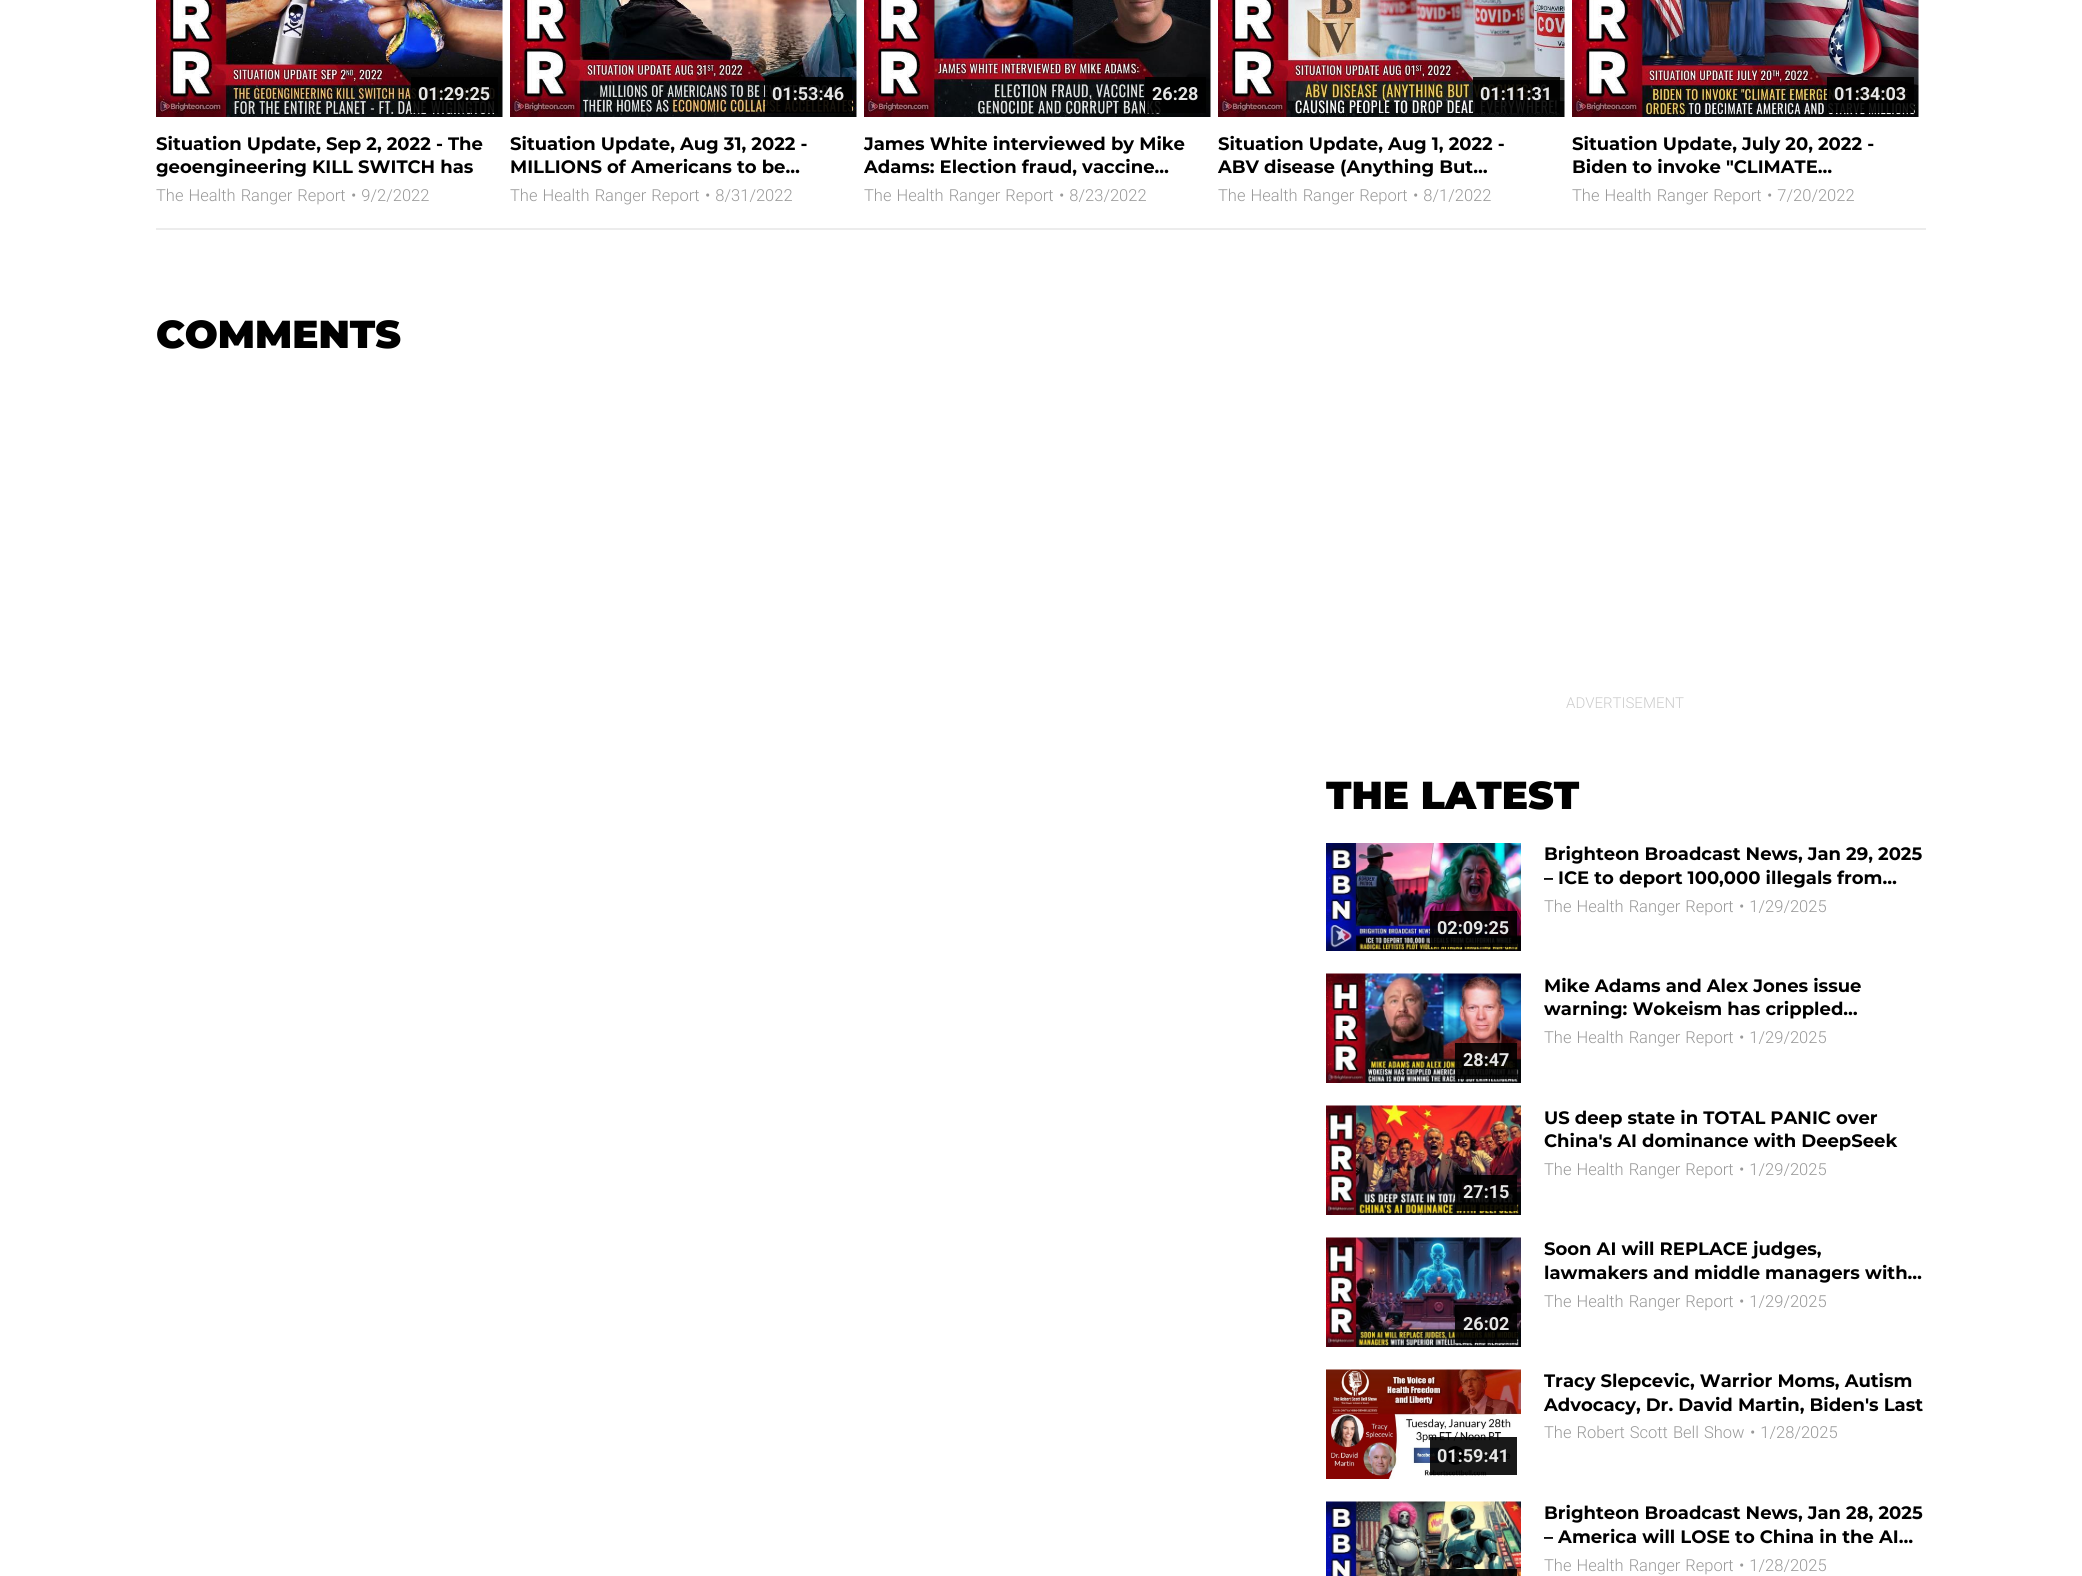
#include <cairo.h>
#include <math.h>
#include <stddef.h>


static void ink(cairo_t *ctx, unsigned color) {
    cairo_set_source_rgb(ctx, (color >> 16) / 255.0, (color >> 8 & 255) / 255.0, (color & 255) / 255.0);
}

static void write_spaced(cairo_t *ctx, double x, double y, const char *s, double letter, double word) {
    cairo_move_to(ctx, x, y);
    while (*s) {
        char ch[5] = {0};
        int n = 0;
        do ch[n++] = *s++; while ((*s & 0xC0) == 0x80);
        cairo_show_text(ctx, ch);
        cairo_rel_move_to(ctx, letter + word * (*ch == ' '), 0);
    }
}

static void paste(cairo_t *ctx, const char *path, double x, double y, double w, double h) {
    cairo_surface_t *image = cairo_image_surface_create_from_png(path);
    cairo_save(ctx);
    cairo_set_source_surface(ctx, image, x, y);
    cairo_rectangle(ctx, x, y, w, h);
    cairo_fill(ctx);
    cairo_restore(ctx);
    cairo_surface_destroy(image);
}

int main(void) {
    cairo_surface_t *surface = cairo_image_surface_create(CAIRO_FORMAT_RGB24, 2082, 1576);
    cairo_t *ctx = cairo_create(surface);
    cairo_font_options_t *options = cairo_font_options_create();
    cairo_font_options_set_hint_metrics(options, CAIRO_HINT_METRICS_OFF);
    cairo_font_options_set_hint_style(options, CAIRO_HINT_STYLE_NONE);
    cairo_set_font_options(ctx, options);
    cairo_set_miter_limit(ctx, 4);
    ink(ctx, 0xFFFFFF);
    cairo_paint(ctx);
    ink(ctx, 0xECECEC);
    cairo_rectangle(ctx, 156, 228, 1770, 2);
    cairo_fill(ctx);
    paste(ctx, "media/1.png", 156, 0, 347, 117);
    cairo_set_source_rgba(ctx, 0, 0, 0, 0.9);
    cairo_rectangle(ctx, 411, 77, 87, 36);
    cairo_fill(ctx);
    cairo_select_font_face(ctx, "Roboto", CAIRO_FONT_SLANT_NORMAL, CAIRO_FONT_WEIGHT_BOLD);
    cairo_set_font_size(ctx, 18);
    ink(ctx, 0xE6E6E6);
    cairo_move_to(ctx, 418, 100);
    cairo_show_text(ctx, "01:29:25");
    cairo_select_font_face(ctx, "Montserrat", CAIRO_FONT_SLANT_NORMAL, CAIRO_FONT_WEIGHT_BOLD);
    ink(ctx, 0x000000);
    cairo_move_to(ctx, 156, 150);
    cairo_show_text(ctx, "Situation Update, Sep 2, 2022 - The");
    cairo_move_to(ctx, 156, 173);
    cairo_show_text(ctx, "geoengineering KILL SWITCH has");
    cairo_select_font_face(ctx, "Roboto Light", CAIRO_FONT_SLANT_NORMAL, CAIRO_FONT_WEIGHT_NORMAL);
    cairo_set_font_size(ctx, 16.5);
    ink(ctx, 0x999999);
    write_spaced(ctx, 156, 201, "The Health Ranger Report", 0, 1);
    write_spaced(ctx, 351, 201, "• 9/2/2022", 0, 1);
    paste(ctx, "media/2.png", 510, 0, 347, 117);
    cairo_set_source_rgba(ctx, 0, 0, 0, 0.9);
    cairo_rectangle(ctx, 765, 77, 87, 36);
    cairo_fill(ctx);
    cairo_select_font_face(ctx, "Roboto", CAIRO_FONT_SLANT_NORMAL, CAIRO_FONT_WEIGHT_BOLD);
    cairo_set_font_size(ctx, 18);
    ink(ctx, 0xE6E6E6);
    cairo_move_to(ctx, 772, 100);
    cairo_show_text(ctx, "01:53:46");
    cairo_select_font_face(ctx, "Montserrat", CAIRO_FONT_SLANT_NORMAL, CAIRO_FONT_WEIGHT_BOLD);
    ink(ctx, 0x000000);
    cairo_move_to(ctx, 510, 150);
    cairo_show_text(ctx, "Situation Update, Aug 31, 2022 -");
    cairo_move_to(ctx, 510, 173);
    cairo_show_text(ctx, "MILLIONS of Americans to be…");
    cairo_select_font_face(ctx, "Roboto Light", CAIRO_FONT_SLANT_NORMAL, CAIRO_FONT_WEIGHT_NORMAL);
    cairo_set_font_size(ctx, 16.5);
    ink(ctx, 0x999999);
    write_spaced(ctx, 510, 201, "The Health Ranger Report", 0, 1);
    write_spaced(ctx, 705, 201, "• 8/31/2022", 0, 1);
    paste(ctx, "media/3.png", 864, 0, 347, 117);
    cairo_set_source_rgba(ctx, 0, 0, 0, 0.9);
    cairo_rectangle(ctx, 1145, 77, 61, 36);
    cairo_fill(ctx);
    cairo_select_font_face(ctx, "Roboto", CAIRO_FONT_SLANT_NORMAL, CAIRO_FONT_WEIGHT_BOLD);
    cairo_set_font_size(ctx, 18);
    ink(ctx, 0xE6E6E6);
    cairo_move_to(ctx, 1152, 100);
    cairo_show_text(ctx, "26:28");
    cairo_select_font_face(ctx, "Montserrat", CAIRO_FONT_SLANT_NORMAL, CAIRO_FONT_WEIGHT_BOLD);
    ink(ctx, 0x000000);
    cairo_move_to(ctx, 864, 150);
    cairo_show_text(ctx, "James White interviewed by Mike");
    cairo_move_to(ctx, 864, 173);
    cairo_show_text(ctx, "Adams: Election fraud, vaccine…");
    cairo_select_font_face(ctx, "Roboto Light", CAIRO_FONT_SLANT_NORMAL, CAIRO_FONT_WEIGHT_NORMAL);
    cairo_set_font_size(ctx, 16.5);
    ink(ctx, 0x999999);
    write_spaced(ctx, 864, 201, "The Health Ranger Report", 0, 1);
    write_spaced(ctx, 1059, 201, "• 8/23/2022", 0, 1);
    paste(ctx, "media/4.png", 1218, 0, 347, 117);
    cairo_set_source_rgba(ctx, 0, 0, 0, 0.9);
    cairo_rectangle(ctx, 1473, 77, 87, 36);
    cairo_fill(ctx);
    cairo_select_font_face(ctx, "Roboto", CAIRO_FONT_SLANT_NORMAL, CAIRO_FONT_WEIGHT_BOLD);
    cairo_set_font_size(ctx, 18);
    ink(ctx, 0xE6E6E6);
    cairo_move_to(ctx, 1480, 100);
    cairo_show_text(ctx, "01:11:31");
    cairo_select_font_face(ctx, "Montserrat", CAIRO_FONT_SLANT_NORMAL, CAIRO_FONT_WEIGHT_BOLD);
    ink(ctx, 0x000000);
    cairo_move_to(ctx, 1218, 150);
    cairo_show_text(ctx, "Situation Update, Aug 1, 2022 -");
    cairo_move_to(ctx, 1218, 173);
    cairo_show_text(ctx, "ABV disease (Anything But…");
    cairo_select_font_face(ctx, "Roboto Light", CAIRO_FONT_SLANT_NORMAL, CAIRO_FONT_WEIGHT_NORMAL);
    cairo_set_font_size(ctx, 16.5);
    ink(ctx, 0x999999);
    write_spaced(ctx, 1218, 201, "The Health Ranger Report", 0, 1);
    write_spaced(ctx, 1413, 201, "• 8/1/2022", 0, 1);
    paste(ctx, "media/5.png", 1572, 0, 347, 117);
    cairo_set_source_rgba(ctx, 0, 0, 0, 0.9);
    cairo_rectangle(ctx, 1827, 77, 87, 36);
    cairo_fill(ctx);
    cairo_select_font_face(ctx, "Roboto", CAIRO_FONT_SLANT_NORMAL, CAIRO_FONT_WEIGHT_BOLD);
    cairo_set_font_size(ctx, 18);
    ink(ctx, 0xE6E6E6);
    cairo_move_to(ctx, 1834, 100);
    cairo_show_text(ctx, "01:34:03");
    cairo_select_font_face(ctx, "Montserrat", CAIRO_FONT_SLANT_NORMAL, CAIRO_FONT_WEIGHT_BOLD);
    ink(ctx, 0x000000);
    cairo_move_to(ctx, 1572, 150);
    cairo_show_text(ctx, "Situation Update, July 20, 2022 -");
    cairo_move_to(ctx, 1572, 173);
    cairo_show_text(ctx, "Biden to invoke \"CLIMATE…");
    cairo_select_font_face(ctx, "Roboto Light", CAIRO_FONT_SLANT_NORMAL, CAIRO_FONT_WEIGHT_NORMAL);
    cairo_set_font_size(ctx, 16.5);
    ink(ctx, 0x999999);
    write_spaced(ctx, 1572, 201, "The Health Ranger Report", 0, 1);
    write_spaced(ctx, 1767, 201, "• 7/20/2022", 0, 1);
    cairo_select_font_face(ctx, "Montserrat Black", CAIRO_FONT_SLANT_NORMAL, CAIRO_FONT_WEIGHT_NORMAL);
    cairo_set_font_size(ctx, 39);
    ink(ctx, 0x000000);
    cairo_move_to(ctx, 156, 348);
    cairo_show_text(ctx, "COMMENTS");
    cairo_select_font_face(ctx, "Roboto Light", CAIRO_FONT_SLANT_NORMAL, CAIRO_FONT_WEIGHT_NORMAL);
    cairo_set_font_size(ctx, 15);
    ink(ctx, 0xCCCCCC);
    cairo_move_to(ctx, 1566, 708);
    cairo_show_text(ctx, "ADVERTISEMENT");
    cairo_select_font_face(ctx, "Montserrat Black", CAIRO_FONT_SLANT_NORMAL, CAIRO_FONT_WEIGHT_NORMAL);
    cairo_set_font_size(ctx, 39);
    ink(ctx, 0x000000);
    cairo_move_to(ctx, 1326, 809);
    cairo_show_text(ctx, "THE LATEST");
    cairo_select_font_face(ctx, "Montserrat", CAIRO_FONT_SLANT_NORMAL, CAIRO_FONT_WEIGHT_BOLD);
    cairo_set_font_size(ctx, 18);
    cairo_move_to(ctx, 1544, 860);
    cairo_show_text(ctx, "Brighteon Broadcast News, Jan 29, 2025");
    cairo_move_to(ctx, 1544, 884);
    cairo_show_text(ctx, "– ICE to deport 100,000 illegals from…");
    cairo_select_font_face(ctx, "Roboto Light", CAIRO_FONT_SLANT_NORMAL, CAIRO_FONT_WEIGHT_NORMAL);
    cairo_set_font_size(ctx, 16.5);
    ink(ctx, 0x999999);
    write_spaced(ctx, 1544, 912, "The Health Ranger Report", 0, 1);
    write_spaced(ctx, 1739, 912, "• 1/29/2025", 0, 1);
    paste(ctx, "media/6.png", 1326, 843, 195, 108);
    cairo_set_source_rgba(ctx, 0, 0, 0, 0.9);
    cairo_rectangle(ctx, 1430, 911, 87, 36);
    cairo_fill(ctx);
    cairo_select_font_face(ctx, "Roboto", CAIRO_FONT_SLANT_NORMAL, CAIRO_FONT_WEIGHT_BOLD);
    cairo_set_font_size(ctx, 18);
    ink(ctx, 0xE6E6E6);
    cairo_move_to(ctx, 1437, 934);
    cairo_show_text(ctx, "02:09:25");
    cairo_select_font_face(ctx, "Montserrat", CAIRO_FONT_SLANT_NORMAL, CAIRO_FONT_WEIGHT_BOLD);
    ink(ctx, 0x000000);
    cairo_move_to(ctx, 1544, 992);
    cairo_show_text(ctx, "Mike Adams and Alex Jones issue");
    cairo_move_to(ctx, 1544, 1015);
    cairo_show_text(ctx, "warning: Wokeism has crippled…");
    cairo_select_font_face(ctx, "Roboto Light", CAIRO_FONT_SLANT_NORMAL, CAIRO_FONT_WEIGHT_NORMAL);
    cairo_set_font_size(ctx, 16.5);
    ink(ctx, 0x999999);
    write_spaced(ctx, 1544, 1043, "The Health Ranger Report", 0, 1);
    write_spaced(ctx, 1739, 1043, "• 1/29/2025", 0, 1);
    paste(ctx, "media/7.png", 1326, 973, 195, 110);
    cairo_set_source_rgba(ctx, 0, 0, 0, 0.9);
    cairo_rectangle(ctx, 1455, 1043, 62, 36);
    cairo_fill(ctx);
    cairo_select_font_face(ctx, "Roboto", CAIRO_FONT_SLANT_NORMAL, CAIRO_FONT_WEIGHT_BOLD);
    cairo_set_font_size(ctx, 18);
    ink(ctx, 0xE6E6E6);
    cairo_move_to(ctx, 1463, 1066);
    cairo_show_text(ctx, "28:47");
    cairo_select_font_face(ctx, "Montserrat", CAIRO_FONT_SLANT_NORMAL, CAIRO_FONT_WEIGHT_BOLD);
    ink(ctx, 0x000000);
    cairo_move_to(ctx, 1544, 1124);
    cairo_show_text(ctx, "US deep state in TOTAL PANIC over");
    cairo_move_to(ctx, 1544, 1147);
    cairo_show_text(ctx, "China's AI dominance with DeepSeek");
    cairo_select_font_face(ctx, "Roboto Light", CAIRO_FONT_SLANT_NORMAL, CAIRO_FONT_WEIGHT_NORMAL);
    cairo_set_font_size(ctx, 16.5);
    ink(ctx, 0x999999);
    write_spaced(ctx, 1544, 1175, "The Health Ranger Report", 0, 1);
    write_spaced(ctx, 1739, 1175, "• 1/29/2025", 0, 1);
    paste(ctx, "media/8.png", 1326, 1105, 195, 110);
    cairo_set_source_rgba(ctx, 0, 0, 0, 0.9);
    cairo_rectangle(ctx, 1455, 1175, 62, 36);
    cairo_fill(ctx);
    cairo_select_font_face(ctx, "Roboto", CAIRO_FONT_SLANT_NORMAL, CAIRO_FONT_WEIGHT_BOLD);
    cairo_set_font_size(ctx, 18);
    ink(ctx, 0xE6E6E6);
    cairo_move_to(ctx, 1463, 1198);
    cairo_show_text(ctx, "27:15");
    cairo_select_font_face(ctx, "Montserrat", CAIRO_FONT_SLANT_NORMAL, CAIRO_FONT_WEIGHT_BOLD);
    ink(ctx, 0x000000);
    cairo_move_to(ctx, 1544, 1255);
    cairo_show_text(ctx, "Soon AI will REPLACE judges,");
    cairo_move_to(ctx, 1544, 1279);
    cairo_show_text(ctx, "lawmakers and middle managers with…");
    cairo_select_font_face(ctx, "Roboto Light", CAIRO_FONT_SLANT_NORMAL, CAIRO_FONT_WEIGHT_NORMAL);
    cairo_set_font_size(ctx, 16.5);
    ink(ctx, 0x999999);
    write_spaced(ctx, 1544, 1307, "The Health Ranger Report", 0, 1);
    write_spaced(ctx, 1739, 1307, "• 1/29/2025", 0, 1);
    paste(ctx, "media/9.png", 1326, 1237, 195, 110);
    cairo_set_source_rgba(ctx, 0, 0, 0, 0.9);
    cairo_rectangle(ctx, 1455, 1305, 62, 38);
    cairo_fill(ctx);
    cairo_select_font_face(ctx, "Roboto", CAIRO_FONT_SLANT_NORMAL, CAIRO_FONT_WEIGHT_BOLD);
    cairo_set_font_size(ctx, 18);
    ink(ctx, 0xE6E6E6);
    cairo_move_to(ctx, 1463, 1330);
    cairo_show_text(ctx, "26:02");
    cairo_save(ctx);
    cairo_rectangle(ctx, 1544, 1370, 382, 46);
    cairo_clip(ctx);
    cairo_select_font_face(ctx, "Montserrat", CAIRO_FONT_SLANT_NORMAL, CAIRO_FONT_WEIGHT_BOLD);
    ink(ctx, 0x000000);
    cairo_move_to(ctx, 1544, 1387);
    cairo_show_text(ctx, "Tracy Slepcevic, Warrior Moms, Autism");
    cairo_restore(ctx);
    cairo_select_font_face(ctx, "Montserrat", CAIRO_FONT_SLANT_NORMAL, CAIRO_FONT_WEIGHT_BOLD);
    ink(ctx, 0x000000);
    cairo_move_to(ctx, 1544, 1411);
    cairo_show_text(ctx, "Advocacy, Dr. David Martin, Biden's Last");
    cairo_select_font_face(ctx, "Roboto Light", CAIRO_FONT_SLANT_NORMAL, CAIRO_FONT_WEIGHT_NORMAL);
    cairo_set_font_size(ctx, 16.5);
    ink(ctx, 0x999999);
    write_spaced(ctx, 1544, 1438, "The Robert Scott Bell Show", 0, 1);
    write_spaced(ctx, 1750, 1438, "• 1/28/2025", 0, 1);
    paste(ctx, "media/10.png", 1326, 1369, 195, 110);
    cairo_set_source_rgba(ctx, 0, 0, 0, 0.9);
    cairo_rectangle(ctx, 1430, 1437, 87, 38);
    cairo_fill(ctx);
    cairo_select_font_face(ctx, "Roboto", CAIRO_FONT_SLANT_NORMAL, CAIRO_FONT_WEIGHT_BOLD);
    cairo_set_font_size(ctx, 18);
    ink(ctx, 0xE6E6E6);
    cairo_move_to(ctx, 1437, 1462);
    cairo_show_text(ctx, "01:59:41");
    paste(ctx, "media/11.png", 1326, 1501, 195, 75);
    cairo_set_source_rgba(ctx, 0, 0, 0, 0.9);
    cairo_rectangle(ctx, 1430, 1569, 87, 7);
    cairo_fill(ctx);
    cairo_select_font_face(ctx, "Montserrat", CAIRO_FONT_SLANT_NORMAL, CAIRO_FONT_WEIGHT_BOLD);
    ink(ctx, 0x000000);
    cairo_move_to(ctx, 1544, 1519);
    cairo_show_text(ctx, "Brighteon Broadcast News, Jan 28, 2025");
    cairo_move_to(ctx, 1544, 1543);
    cairo_show_text(ctx, "– America will LOSE to China in the AI…");
    cairo_select_font_face(ctx, "Roboto Light", CAIRO_FONT_SLANT_NORMAL, CAIRO_FONT_WEIGHT_NORMAL);
    cairo_set_font_size(ctx, 16.5);
    ink(ctx, 0x999999);
    write_spaced(ctx, 1544, 1571, "The Health Ranger Report", 0, 1);
    write_spaced(ctx, 1739, 1571, "• 1/28/2025", 0, 1);
    cairo_surface_write_to_png(surface, "image.png");
    cairo_font_options_destroy(options);
    cairo_destroy(ctx);
    cairo_surface_destroy(surface);
    return 0;
}
